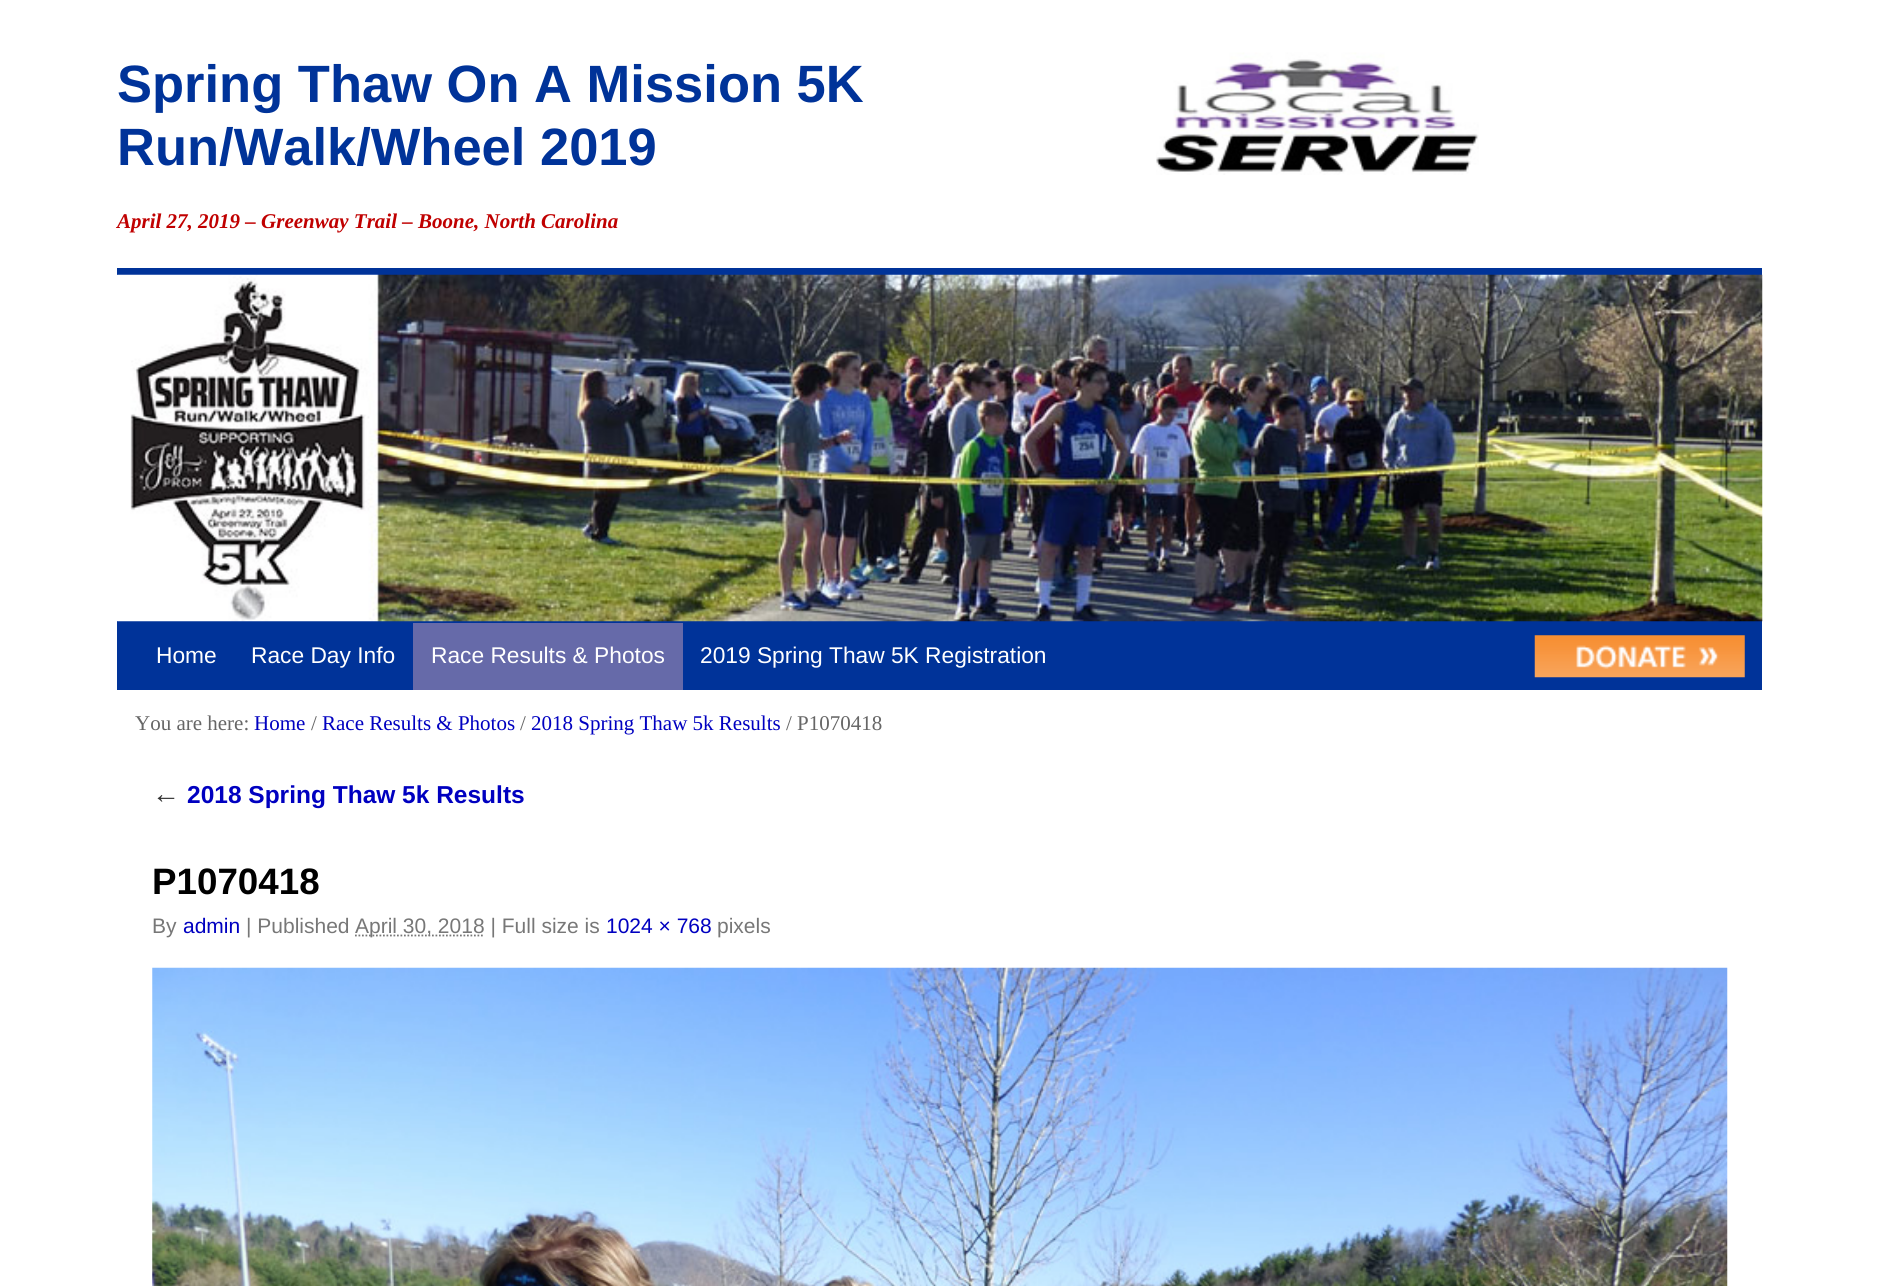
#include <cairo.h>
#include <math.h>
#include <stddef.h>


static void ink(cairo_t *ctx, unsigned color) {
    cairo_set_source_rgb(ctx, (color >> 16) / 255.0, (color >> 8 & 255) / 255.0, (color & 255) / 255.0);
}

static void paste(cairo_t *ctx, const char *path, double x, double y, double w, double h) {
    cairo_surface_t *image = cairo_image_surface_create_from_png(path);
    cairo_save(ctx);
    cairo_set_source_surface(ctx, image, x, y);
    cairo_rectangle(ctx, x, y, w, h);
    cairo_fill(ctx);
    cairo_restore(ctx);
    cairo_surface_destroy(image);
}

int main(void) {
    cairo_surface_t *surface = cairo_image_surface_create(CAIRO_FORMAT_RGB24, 1878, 1286);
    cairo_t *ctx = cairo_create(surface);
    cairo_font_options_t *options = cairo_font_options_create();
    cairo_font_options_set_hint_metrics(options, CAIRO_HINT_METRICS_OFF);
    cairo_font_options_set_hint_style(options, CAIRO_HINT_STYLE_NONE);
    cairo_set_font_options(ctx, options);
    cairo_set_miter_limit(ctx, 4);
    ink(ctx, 0xFFFFFF);
    cairo_paint(ctx);
    cairo_select_font_face(ctx, "Liberation Sans", CAIRO_FONT_SLANT_NORMAL, CAIRO_FONT_WEIGHT_BOLD);
    cairo_set_font_size(ctx, 52.5);
    ink(ctx, 0x003399);
    cairo_move_to(ctx, 117, 102);
    cairo_show_text(ctx, "Spring Thaw On A Mission 5K");
    cairo_move_to(ctx, 117, 165);
    cairo_show_text(ctx, "Run/Walk/Wheel 2019");
    cairo_select_font_face(ctx, "Liberation Serif", CAIRO_FONT_SLANT_ITALIC, CAIRO_FONT_WEIGHT_BOLD);
    cairo_set_font_size(ctx, 21);
    ink(ctx, 0xC00000);
    cairo_move_to(ctx, 117, 228);
    cairo_show_text(ctx, "April 27, 2019 – Greenway Trail – Boone, North Carolina");
    paste(ctx, "media/1.png", 1156, 52, 323, 123);
    ink(ctx, 0x003399);
    cairo_rectangle(ctx, 117, 268, 1645, 7);
    cairo_fill(ctx);
    cairo_rectangle(ctx, 117, 621, 1645, 69);
    cairo_fill(ctx);
    paste(ctx, "media/2.png", 117, 274, 1646, 348);
    cairo_select_font_face(ctx, "Liberation Sans", CAIRO_FONT_SLANT_NORMAL, CAIRO_FONT_WEIGHT_NORMAL);
    cairo_set_font_size(ctx, 22.75);
    ink(ctx, 0xFFFFFF);
    cairo_move_to(ctx, 156, 663);
    cairo_show_text(ctx, "Home");
    cairo_move_to(ctx, 251, 663);
    cairo_show_text(ctx, "Race Day Info");
    ink(ctx, 0x666AA9);
    cairo_rectangle(ctx, 413, 623, 270, 67);
    cairo_fill(ctx);
    ink(ctx, 0xFFFFFF);
    cairo_move_to(ctx, 431, 663);
    cairo_show_text(ctx, "Race Results & Photos");
    cairo_move_to(ctx, 700, 663);
    cairo_show_text(ctx, "2019 Spring Thaw 5K Registration");
    paste(ctx, "media/3.png", 1534, 635, 211, 43);
    cairo_select_font_face(ctx, "Liberation Serif", CAIRO_FONT_SLANT_NORMAL, CAIRO_FONT_WEIGHT_NORMAL);
    cairo_set_font_size(ctx, 21);
    ink(ctx, 0x666666);
    cairo_move_to(ctx, 135, 730);
    cairo_show_text(ctx, "You are here:");
    ink(ctx, 0x0000C0);
    cairo_move_to(ctx, 254, 730);
    cairo_show_text(ctx, "Home");
    ink(ctx, 0x666666);
    cairo_move_to(ctx, 311, 730);
    cairo_show_text(ctx, "/");
    ink(ctx, 0x0000C0);
    cairo_move_to(ctx, 322, 730);
    cairo_show_text(ctx, "Race Results & Photos");
    ink(ctx, 0x666666);
    cairo_move_to(ctx, 520, 730);
    cairo_show_text(ctx, "/");
    ink(ctx, 0x0000C0);
    cairo_move_to(ctx, 531, 730);
    cairo_show_text(ctx, "2018 Spring Thaw 5k Results");
    ink(ctx, 0x666666);
    cairo_move_to(ctx, 786, 730);
    cairo_show_text(ctx, "/ P1070418");
    cairo_select_font_face(ctx, "Liberation Serif", CAIRO_FONT_SLANT_ITALIC, CAIRO_FONT_WEIGHT_NORMAL);
    cairo_set_font_size(ctx, 28);
    ink(ctx, 0x333333);
    cairo_move_to(ctx, 152, 803);
    cairo_show_text(ctx, "←");
    cairo_select_font_face(ctx, "Liberation Sans", CAIRO_FONT_SLANT_NORMAL, CAIRO_FONT_WEIGHT_BOLD);
    cairo_set_font_size(ctx, 24.5);
    ink(ctx, 0x0000C0);
    cairo_move_to(ctx, 187, 803);
    cairo_show_text(ctx, "2018 Spring Thaw 5k Results");
    cairo_set_font_size(ctx, 36.75);
    ink(ctx, 0x000000);
    cairo_move_to(ctx, 152, 894);
    cairo_show_text(ctx, "P1070418");
    cairo_select_font_face(ctx, "Liberation Sans", CAIRO_FONT_SLANT_NORMAL, CAIRO_FONT_WEIGHT_NORMAL);
    cairo_set_font_size(ctx, 21);
    ink(ctx, 0x777777);
    cairo_move_to(ctx, 152, 933);
    cairo_show_text(ctx, "By");
    ink(ctx, 0x0000C0);
    cairo_move_to(ctx, 183, 933);
    cairo_show_text(ctx, "admin");
    ink(ctx, 0x777777);
    cairo_move_to(ctx, 246, 933);
    cairo_show_text(ctx, "| Published");
    cairo_new_path(ctx);
    cairo_move_to(ctx, 355, 935.5);
    cairo_line_to(ctx, 484.5, 935.5);
    cairo_set_line_width(ctx, 1.8);
    cairo_set_dash(ctx, (double[]){1.75, 1.75}, 2, 0);
    cairo_stroke(ctx);
    cairo_move_to(ctx, 355, 933);
    cairo_show_text(ctx, "April 30, 2018 | Full size is");
    ink(ctx, 0x0000C0);
    cairo_move_to(ctx, 606, 933);
    cairo_show_text(ctx, "1024 × 768");
    ink(ctx, 0x777777);
    cairo_move_to(ctx, 717, 933);
    cairo_show_text(ctx, "pixels");
    paste(ctx, "media/4.png", 152, 967, 1576, 319);
    cairo_surface_write_to_png(surface, "image.png");
    cairo_font_options_destroy(options);
    cairo_destroy(ctx);
    cairo_surface_destroy(surface);
    return 0;
}
